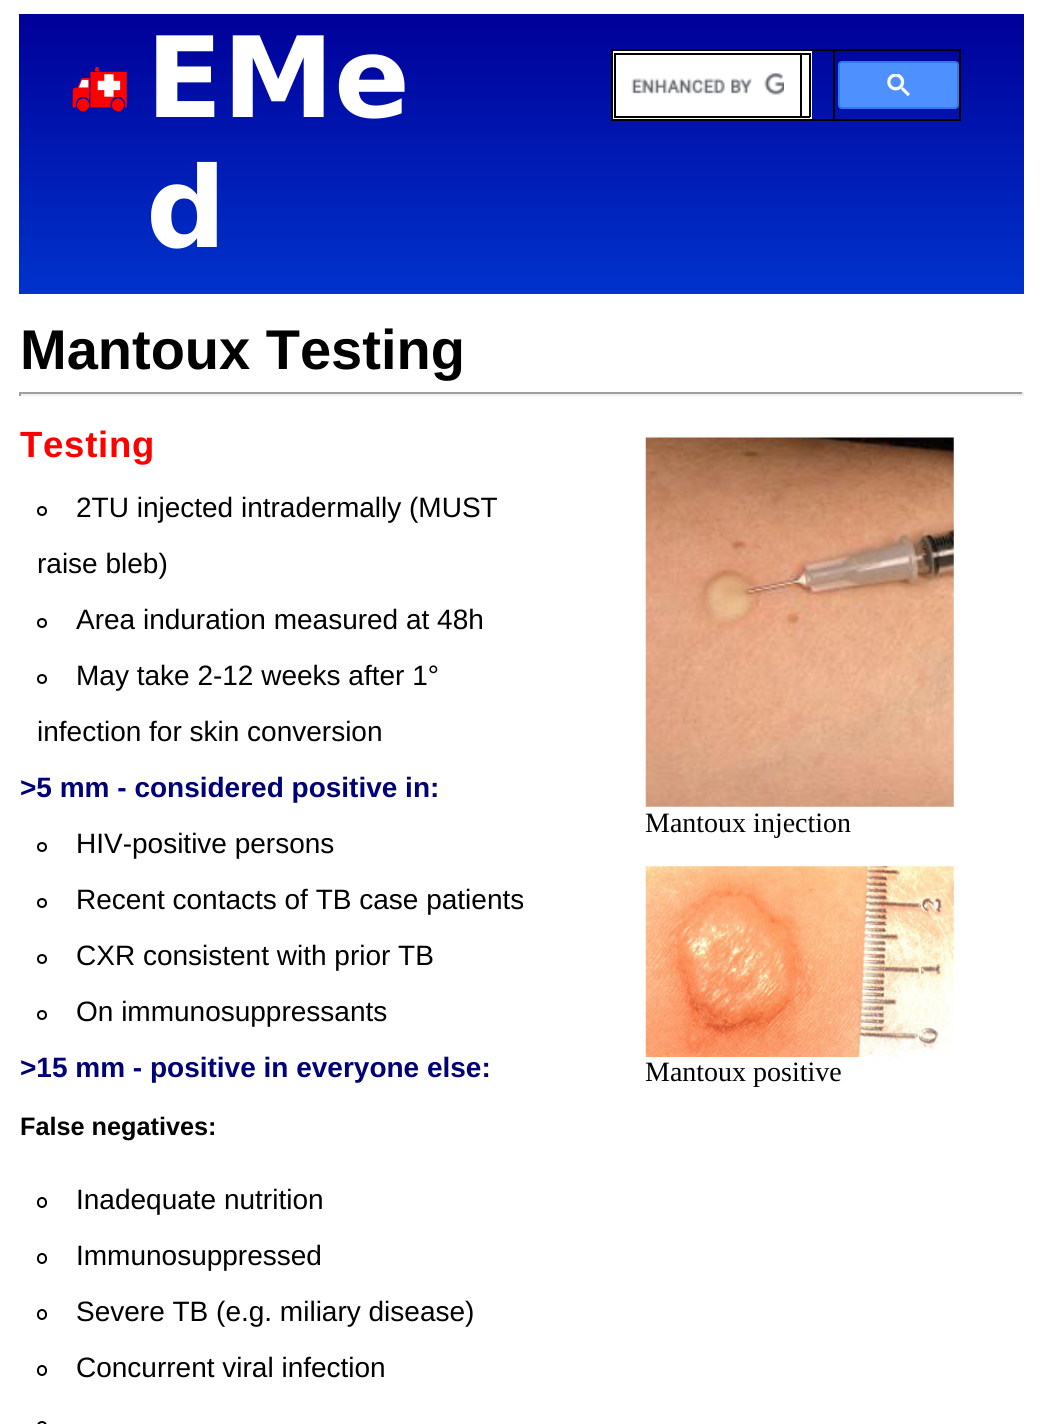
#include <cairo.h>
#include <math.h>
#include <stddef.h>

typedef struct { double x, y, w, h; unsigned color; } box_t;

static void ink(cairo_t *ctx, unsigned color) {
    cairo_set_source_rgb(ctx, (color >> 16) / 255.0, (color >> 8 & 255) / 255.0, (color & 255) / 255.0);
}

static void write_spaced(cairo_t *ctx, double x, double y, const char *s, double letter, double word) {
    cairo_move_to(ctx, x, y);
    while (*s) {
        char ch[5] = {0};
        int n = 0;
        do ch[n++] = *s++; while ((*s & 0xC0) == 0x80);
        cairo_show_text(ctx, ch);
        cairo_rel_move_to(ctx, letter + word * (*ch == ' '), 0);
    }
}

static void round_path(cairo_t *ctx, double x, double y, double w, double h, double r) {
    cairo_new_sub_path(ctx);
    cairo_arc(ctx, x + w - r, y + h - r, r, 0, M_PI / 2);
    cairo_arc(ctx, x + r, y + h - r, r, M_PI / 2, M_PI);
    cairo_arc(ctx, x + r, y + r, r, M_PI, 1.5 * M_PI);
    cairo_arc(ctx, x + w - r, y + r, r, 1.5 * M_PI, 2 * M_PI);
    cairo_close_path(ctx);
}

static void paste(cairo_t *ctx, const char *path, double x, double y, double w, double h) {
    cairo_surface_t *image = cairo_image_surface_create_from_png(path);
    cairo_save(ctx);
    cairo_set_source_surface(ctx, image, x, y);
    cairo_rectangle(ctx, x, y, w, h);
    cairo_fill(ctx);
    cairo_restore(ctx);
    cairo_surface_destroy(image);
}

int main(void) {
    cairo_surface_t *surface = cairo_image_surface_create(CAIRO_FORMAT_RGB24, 1043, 1424);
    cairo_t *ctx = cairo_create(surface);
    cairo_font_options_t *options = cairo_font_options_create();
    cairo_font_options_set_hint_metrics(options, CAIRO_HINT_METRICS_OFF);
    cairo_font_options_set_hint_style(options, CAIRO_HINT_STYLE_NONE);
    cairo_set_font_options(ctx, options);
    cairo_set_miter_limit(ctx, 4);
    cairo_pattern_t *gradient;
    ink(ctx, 0xFFFFFF);
    cairo_paint(ctx);
    gradient = cairo_pattern_create_linear(522, 14, 522, 294);
    cairo_pattern_add_color_stop_rgba(gradient, 0, 0, 0, 0.6, 1);
    cairo_pattern_add_color_stop_rgba(gradient, 1, 0, 0.2, 0.8, 1);
    cairo_set_source(ctx, gradient);
    cairo_pattern_destroy(gradient);
    cairo_rectangle(ctx, 19, 14, 1005, 280);
    cairo_fill(ctx);
    paste(ctx, "media/1.png", 72, 67, 55, 45);
    cairo_select_font_face(ctx, "DejaVu Sans", CAIRO_FONT_SLANT_NORMAL, CAIRO_FONT_WEIGHT_BOLD);
    cairo_set_font_size(ctx, 112);
    ink(ctx, 0xFFFFFF);
    cairo_move_to(ctx, 146, 117);
    cairo_show_text(ctx, "EMe");
    cairo_move_to(ctx, 146, 247);
    cairo_show_text(ctx, "d");
    {
        static const box_t items[] = {
            {611, 49, 350, 2, 0x000000},
            {959, 49, 2, 72, 0x000000},
            {611, 119, 350, 2, 0x000000},
            {611, 49, 2, 72, 0x000000},
            {613, 51, 199, 68, 0xFFFFFF},
            {614, 53, 196, 2, 0x000000},
            {809, 53, 2, 64, 0x000000},
            {614, 116, 196, 2, 0x000000},
            {614, 53, 2, 64, 0x000000},
        };
        for (size_t i = 0; i < sizeof items / sizeof *items; i++) {
            ink(ctx, items[i].color);
            cairo_rectangle(ctx, items[i].x, items[i].y, items[i].w, items[i].h);
            cairo_fill(ctx);
        }
    }
    paste(ctx, "media/2.png", 631, 73, 153, 22);
    cairo_rectangle(ctx, 800, 53, 2, 64);
    cairo_fill(ctx);
    cairo_rectangle(ctx, 833, 49, 2, 72);
    cairo_fill(ctx);
    ink(ctx, 0x4D90FE);
    round_path(ctx, 839, 62, 119, 46, 3);
    cairo_fill_preserve(ctx);
    ink(ctx, 0x3079ED);
    cairo_stroke(ctx);
    paste(ctx, "media/3.png", 887, 74, 23, 22);
    cairo_select_font_face(ctx, "Liberation Sans", CAIRO_FONT_SLANT_NORMAL, CAIRO_FONT_WEIGHT_BOLD);
    cairo_set_font_size(ctx, 56);
    ink(ctx, 0x000000);
    cairo_move_to(ctx, 20, 369);
    cairo_show_text(ctx, "Mantoux Testing");
    {
        static const box_t items[] = {
            {19, 392, 1005, 2, 0x9F9F9F},
            {1022, 392, 2, 4, 0xEEEEEE},
            {19, 394, 1005, 2, 0xEEEEEE},
            {19, 392, 2, 4, 0x9F9F9F},
        };
        for (size_t i = 0; i < sizeof items / sizeof *items; i++) {
            ink(ctx, items[i].color);
            cairo_rectangle(ctx, items[i].x, items[i].y, items[i].w, items[i].h);
            cairo_fill(ctx);
        }
    }
    cairo_set_font_size(ctx, 36.5);
    ink(ctx, 0xFF0000);
    write_spaced(ctx, 20, 457, "Testing", 0.75, 0);
    cairo_new_path(ctx);
    cairo_arc(ctx, 42, 511, 4, 0, 2 * M_PI);
    ink(ctx, 0x000000);
    cairo_stroke(ctx);
    cairo_select_font_face(ctx, "Liberation Sans", CAIRO_FONT_SLANT_NORMAL, CAIRO_FONT_WEIGHT_NORMAL);
    cairo_set_font_size(ctx, 28);
    cairo_move_to(ctx, 76, 517);
    cairo_show_text(ctx, "2TU injected intradermally (MUST");
    cairo_move_to(ctx, 37, 573);
    cairo_show_text(ctx, "raise bleb)");
    cairo_new_path(ctx);
    cairo_arc(ctx, 42, 623, 4, 0, 2 * M_PI);
    cairo_stroke(ctx);
    cairo_move_to(ctx, 76, 629);
    cairo_show_text(ctx, "Area induration measured at 48h");
    cairo_new_path(ctx);
    cairo_arc(ctx, 42, 679, 4, 0, 2 * M_PI);
    cairo_stroke(ctx);
    cairo_move_to(ctx, 76, 685);
    cairo_show_text(ctx, "May take 2-12 weeks after 1°");
    cairo_move_to(ctx, 37, 741);
    cairo_show_text(ctx, "infection for skin conversion");
    cairo_select_font_face(ctx, "Liberation Sans", CAIRO_FONT_SLANT_NORMAL, CAIRO_FONT_WEIGHT_BOLD);
    ink(ctx, 0x000077);
    cairo_move_to(ctx, 20, 797);
    cairo_show_text(ctx, ">5 mm - considered positive in:");
    cairo_new_path(ctx);
    cairo_arc(ctx, 42, 847, 4, 0, 2 * M_PI);
    ink(ctx, 0x000000);
    cairo_stroke(ctx);
    cairo_select_font_face(ctx, "Liberation Sans", CAIRO_FONT_SLANT_NORMAL, CAIRO_FONT_WEIGHT_NORMAL);
    cairo_move_to(ctx, 76, 853);
    cairo_show_text(ctx, "HIV-positive persons");
    cairo_new_path(ctx);
    cairo_arc(ctx, 42, 903, 4, 0, 2 * M_PI);
    cairo_stroke(ctx);
    cairo_move_to(ctx, 76, 909);
    cairo_show_text(ctx, "Recent contacts of TB case patients");
    cairo_new_path(ctx);
    cairo_arc(ctx, 42, 959, 4, 0, 2 * M_PI);
    cairo_stroke(ctx);
    cairo_move_to(ctx, 76, 965);
    cairo_show_text(ctx, "CXR consistent with prior TB");
    cairo_new_path(ctx);
    cairo_arc(ctx, 42, 1015, 4, 0, 2 * M_PI);
    cairo_stroke(ctx);
    cairo_move_to(ctx, 76, 1021);
    cairo_show_text(ctx, "On immunosuppressants");
    cairo_select_font_face(ctx, "Liberation Sans", CAIRO_FONT_SLANT_NORMAL, CAIRO_FONT_WEIGHT_BOLD);
    ink(ctx, 0x000077);
    cairo_move_to(ctx, 20, 1077);
    cairo_show_text(ctx, ">15 mm - positive in everyone else:");
    cairo_set_font_size(ctx, 25.25);
    ink(ctx, 0x000000);
    cairo_move_to(ctx, 20, 1135);
    cairo_show_text(ctx, "False negatives:");
    round_path(ctx, 38, 1198, 8, 9, 4);
    cairo_stroke(ctx);
    cairo_select_font_face(ctx, "Liberation Sans", CAIRO_FONT_SLANT_NORMAL, CAIRO_FONT_WEIGHT_NORMAL);
    cairo_set_font_size(ctx, 28);
    cairo_move_to(ctx, 76, 1209);
    cairo_show_text(ctx, "Inadequate nutrition");
    round_path(ctx, 38, 1254, 8, 9, 4);
    cairo_stroke(ctx);
    cairo_move_to(ctx, 76, 1265);
    cairo_show_text(ctx, "Immunosuppressed");
    round_path(ctx, 38, 1310, 8, 9, 4);
    cairo_stroke(ctx);
    cairo_move_to(ctx, 76, 1321);
    cairo_show_text(ctx, "Severe TB (e.g. miliary disease)");
    round_path(ctx, 38, 1366, 8, 9, 4);
    cairo_stroke(ctx);
    cairo_move_to(ctx, 76, 1377);
    cairo_show_text(ctx, "Concurrent viral infection");
    cairo_new_path(ctx);
    cairo_arc(ctx, 42, 1426, 4, 0, 2 * M_PI);
    cairo_stroke(ctx);
    paste(ctx, "media/4.png", 645, 437, 309, 370);
    cairo_select_font_face(ctx, "Liberation Serif", CAIRO_FONT_SLANT_NORMAL, CAIRO_FONT_WEIGHT_NORMAL);
    cairo_move_to(ctx, 645, 832);
    cairo_show_text(ctx, "Mantoux injection");
    paste(ctx, "media/5.png", 645, 866, 309, 191);
    cairo_move_to(ctx, 645, 1081);
    cairo_show_text(ctx, "Mantoux positive");
    cairo_surface_write_to_png(surface, "image.png");
    cairo_font_options_destroy(options);
    cairo_destroy(ctx);
    cairo_surface_destroy(surface);
    return 0;
}
